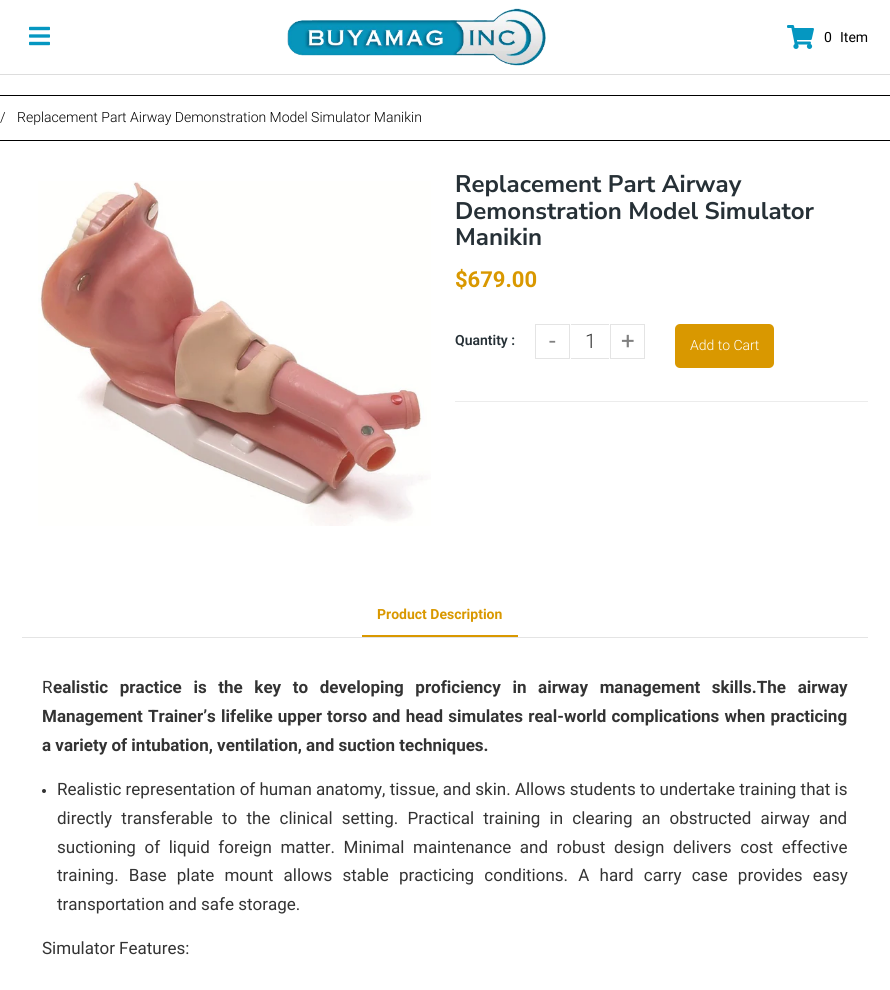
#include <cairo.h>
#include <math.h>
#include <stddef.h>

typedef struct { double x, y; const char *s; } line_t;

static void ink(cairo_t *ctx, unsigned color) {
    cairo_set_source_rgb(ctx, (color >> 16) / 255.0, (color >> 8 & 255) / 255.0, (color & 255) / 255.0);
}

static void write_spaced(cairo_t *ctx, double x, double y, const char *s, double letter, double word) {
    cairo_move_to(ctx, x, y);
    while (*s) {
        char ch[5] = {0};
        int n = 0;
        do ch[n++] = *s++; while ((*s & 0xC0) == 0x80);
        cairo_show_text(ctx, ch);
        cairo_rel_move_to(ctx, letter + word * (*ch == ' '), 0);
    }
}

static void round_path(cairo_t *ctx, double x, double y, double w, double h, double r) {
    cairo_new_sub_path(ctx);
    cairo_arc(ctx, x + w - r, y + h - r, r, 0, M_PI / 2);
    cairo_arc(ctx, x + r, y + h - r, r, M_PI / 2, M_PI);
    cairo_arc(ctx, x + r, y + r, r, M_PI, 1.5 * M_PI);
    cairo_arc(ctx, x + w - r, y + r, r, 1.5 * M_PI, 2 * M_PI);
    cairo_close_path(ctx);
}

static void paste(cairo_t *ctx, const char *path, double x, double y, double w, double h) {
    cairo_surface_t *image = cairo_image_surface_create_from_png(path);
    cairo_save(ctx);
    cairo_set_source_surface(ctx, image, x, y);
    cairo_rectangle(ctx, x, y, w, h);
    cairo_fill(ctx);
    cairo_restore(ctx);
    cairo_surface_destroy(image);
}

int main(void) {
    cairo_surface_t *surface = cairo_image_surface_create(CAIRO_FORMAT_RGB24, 890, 990);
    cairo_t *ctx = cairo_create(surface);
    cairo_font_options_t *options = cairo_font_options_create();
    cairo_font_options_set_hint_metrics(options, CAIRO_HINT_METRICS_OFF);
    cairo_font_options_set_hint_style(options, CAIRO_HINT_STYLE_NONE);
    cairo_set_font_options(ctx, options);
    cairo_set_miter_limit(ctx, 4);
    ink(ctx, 0xFFFFFF);
    cairo_paint(ctx);
    ink(ctx, 0xDDDDDD);
    cairo_rectangle(ctx, 0, 74, 890, 1);
    cairo_fill(ctx);
    paste(ctx, "media/1.png", 29, 26, 21, 20);
    paste(ctx, "media/2.png", 287, 8, 259, 58);
    paste(ctx, "media/3.png", 787, 25, 27, 24);
    cairo_select_font_face(ctx, "Roboto", CAIRO_FONT_SLANT_NORMAL, CAIRO_FONT_WEIGHT_NORMAL);
    cairo_set_font_size(ctx, 14);
    ink(ctx, 0x000000);
    cairo_move_to(ctx, 824, 42);
    cairo_show_text(ctx, "0");
    cairo_move_to(ctx, 840, 42);
    cairo_show_text(ctx, "Item");
    cairo_rectangle(ctx, 0, 95, 890, 1);
    cairo_fill(ctx);
    cairo_rectangle(ctx, 0, 140, 890, 1);
    cairo_fill(ctx);
    cairo_select_font_face(ctx, "Roboto Light", CAIRO_FONT_SLANT_NORMAL, CAIRO_FONT_WEIGHT_NORMAL);
    cairo_move_to(ctx, 0, 122);
    cairo_show_text(ctx, "/");
    cairo_move_to(ctx, 17, 122);
    cairo_show_text(ctx, "Replacement Part Airway Demonstration Model Simulator Manikin");
    paste(ctx, "media/4.png", 38, 181, 393, 345);
    cairo_select_font_face(ctx, "Nunito Sans", CAIRO_FONT_SLANT_NORMAL, CAIRO_FONT_WEIGHT_BOLD);
    cairo_set_font_size(ctx, 24);
    ink(ctx, 0x263036);
    {
        static const line_t items[] = {
            {455, 192, "Replacement Part Airway"},
            {455, 219, "Demonstration Model Simulator"},
            {455, 245, "Manikin"},
        };
        for (size_t i = 0; i < sizeof items / sizeof *items; i++) {
            cairo_move_to(ctx, items[i].x, items[i].y);
            cairo_show_text(ctx, items[i].s);
        }
    }
    cairo_select_font_face(ctx, "Roboto", CAIRO_FONT_SLANT_NORMAL, CAIRO_FONT_WEIGHT_BOLD);
    cairo_set_font_size(ctx, 22);
    ink(ctx, 0xD99800);
    cairo_move_to(ctx, 455, 287);
    cairo_show_text(ctx, "$679.00");
    cairo_select_font_face(ctx, "Roboto SemiBold", CAIRO_FONT_SLANT_NORMAL, CAIRO_FONT_WEIGHT_NORMAL);
    cairo_set_font_size(ctx, 14);
    ink(ctx, 0x263036);
    cairo_move_to(ctx, 455, 345);
    cairo_show_text(ctx, "Quantity :");
    cairo_rectangle(ctx, 535.5, 324.5, 34, 34);
    ink(ctx, 0xE4E4E4);
    cairo_set_line_width(ctx, 1);
    cairo_stroke(ctx);
    cairo_select_font_face(ctx, "Roboto", CAIRO_FONT_SLANT_NORMAL, CAIRO_FONT_WEIGHT_NORMAL);
    cairo_set_font_size(ctx, 24);
    ink(ctx, 0x808080);
    cairo_move_to(ctx, 549, 349);
    cairo_show_text(ctx, "-");
    ink(ctx, 0xE4E4E4);
    cairo_rectangle(ctx, 571, 324, 38, 1);
    cairo_fill(ctx);
    cairo_rectangle(ctx, 571, 358, 38, 1);
    cairo_fill(ctx);
    cairo_select_font_face(ctx, "Roboto Light", CAIRO_FONT_SLANT_NORMAL, CAIRO_FONT_WEIGHT_NORMAL);
    cairo_set_font_size(ctx, 20);
    ink(ctx, 0x333333);
    cairo_move_to(ctx, 585, 348);
    cairo_show_text(ctx, "1");
    cairo_rectangle(ctx, 610.5, 324.5, 34, 34);
    ink(ctx, 0xE4E4E4);
    cairo_stroke(ctx);
    cairo_select_font_face(ctx, "Roboto", CAIRO_FONT_SLANT_NORMAL, CAIRO_FONT_WEIGHT_NORMAL);
    cairo_set_font_size(ctx, 24);
    ink(ctx, 0x808080);
    cairo_move_to(ctx, 621, 349);
    cairo_show_text(ctx, "+");
    ink(ctx, 0xD99800);
    round_path(ctx, 675, 324, 99, 44, 5);
    cairo_fill(ctx);
    cairo_select_font_face(ctx, "Roboto Light", CAIRO_FONT_SLANT_NORMAL, CAIRO_FONT_WEIGHT_NORMAL);
    cairo_set_font_size(ctx, 14);
    ink(ctx, 0xFFFFFF);
    cairo_move_to(ctx, 690, 350);
    cairo_show_text(ctx, "Add to Cart");
    ink(ctx, 0xECECEC);
    cairo_rectangle(ctx, 455, 401, 413, 1);
    cairo_fill(ctx);
    ink(ctx, 0xE4E4E4);
    cairo_rectangle(ctx, 22, 637, 846, 1);
    cairo_fill(ctx);
    cairo_select_font_face(ctx, "Roboto", CAIRO_FONT_SLANT_NORMAL, CAIRO_FONT_WEIGHT_BOLD);
    ink(ctx, 0xD99800);
    cairo_move_to(ctx, 377, 619);
    cairo_show_text(ctx, "Product Description");
    cairo_rectangle(ctx, 362, 635, 156, 2);
    cairo_fill(ctx);
    cairo_select_font_face(ctx, "Roboto", CAIRO_FONT_SLANT_NORMAL, CAIRO_FONT_WEIGHT_NORMAL);
    cairo_set_font_size(ctx, 17);
    ink(ctx, 0x333333);
    cairo_move_to(ctx, 42, 693);
    cairo_show_text(ctx, "R");
    cairo_select_font_face(ctx, "Roboto", CAIRO_FONT_SLANT_NORMAL, CAIRO_FONT_WEIGHT_BOLD);
    write_spaced(ctx, 53, 693, "ealistic practice is the key to developing proficiency in airway management skills.The airway", 0, 7.4);
    write_spaced(ctx, 42, 722, "Management Trainer’s lifelike upper torso and head simulates real-world complications when practicing", 0, 1);
    cairo_move_to(ctx, 42, 751);
    cairo_show_text(ctx, "a variety of intubation, ventilation, and suction techniques.");
    cairo_new_path(ctx);
    cairo_arc(ctx, 44, 791, 2, 0, 2 * M_PI);
    cairo_fill(ctx);
    cairo_select_font_face(ctx, "Roboto", CAIRO_FONT_SLANT_NORMAL, CAIRO_FONT_WEIGHT_NORMAL);
    cairo_move_to(ctx, 57, 795);
    cairo_show_text(ctx, "Realistic representation of human anatomy, tissue, and skin. Allows students to undertake training that is");
    write_spaced(ctx, 57, 824, "directly transferable to the clinical setting. Practical training in clearing an obstructed airway and", 0, 5);
    write_spaced(ctx, 57, 853, "suctioning of liquid foreign matter. Minimal maintenance and robust design delivers cost effective", 0, 4.4);
    write_spaced(ctx, 57, 881, "training. Base plate mount allows stable practicing conditions. A hard carry case provides easy", 0, 6);
    cairo_move_to(ctx, 57, 910);
    cairo_show_text(ctx, "transportation and safe storage.");
    cairo_move_to(ctx, 42, 954);
    cairo_show_text(ctx, "Simulator Features:");
    cairo_surface_write_to_png(surface, "image.png");
    cairo_font_options_destroy(options);
    cairo_destroy(ctx);
    cairo_surface_destroy(surface);
    return 0;
}
